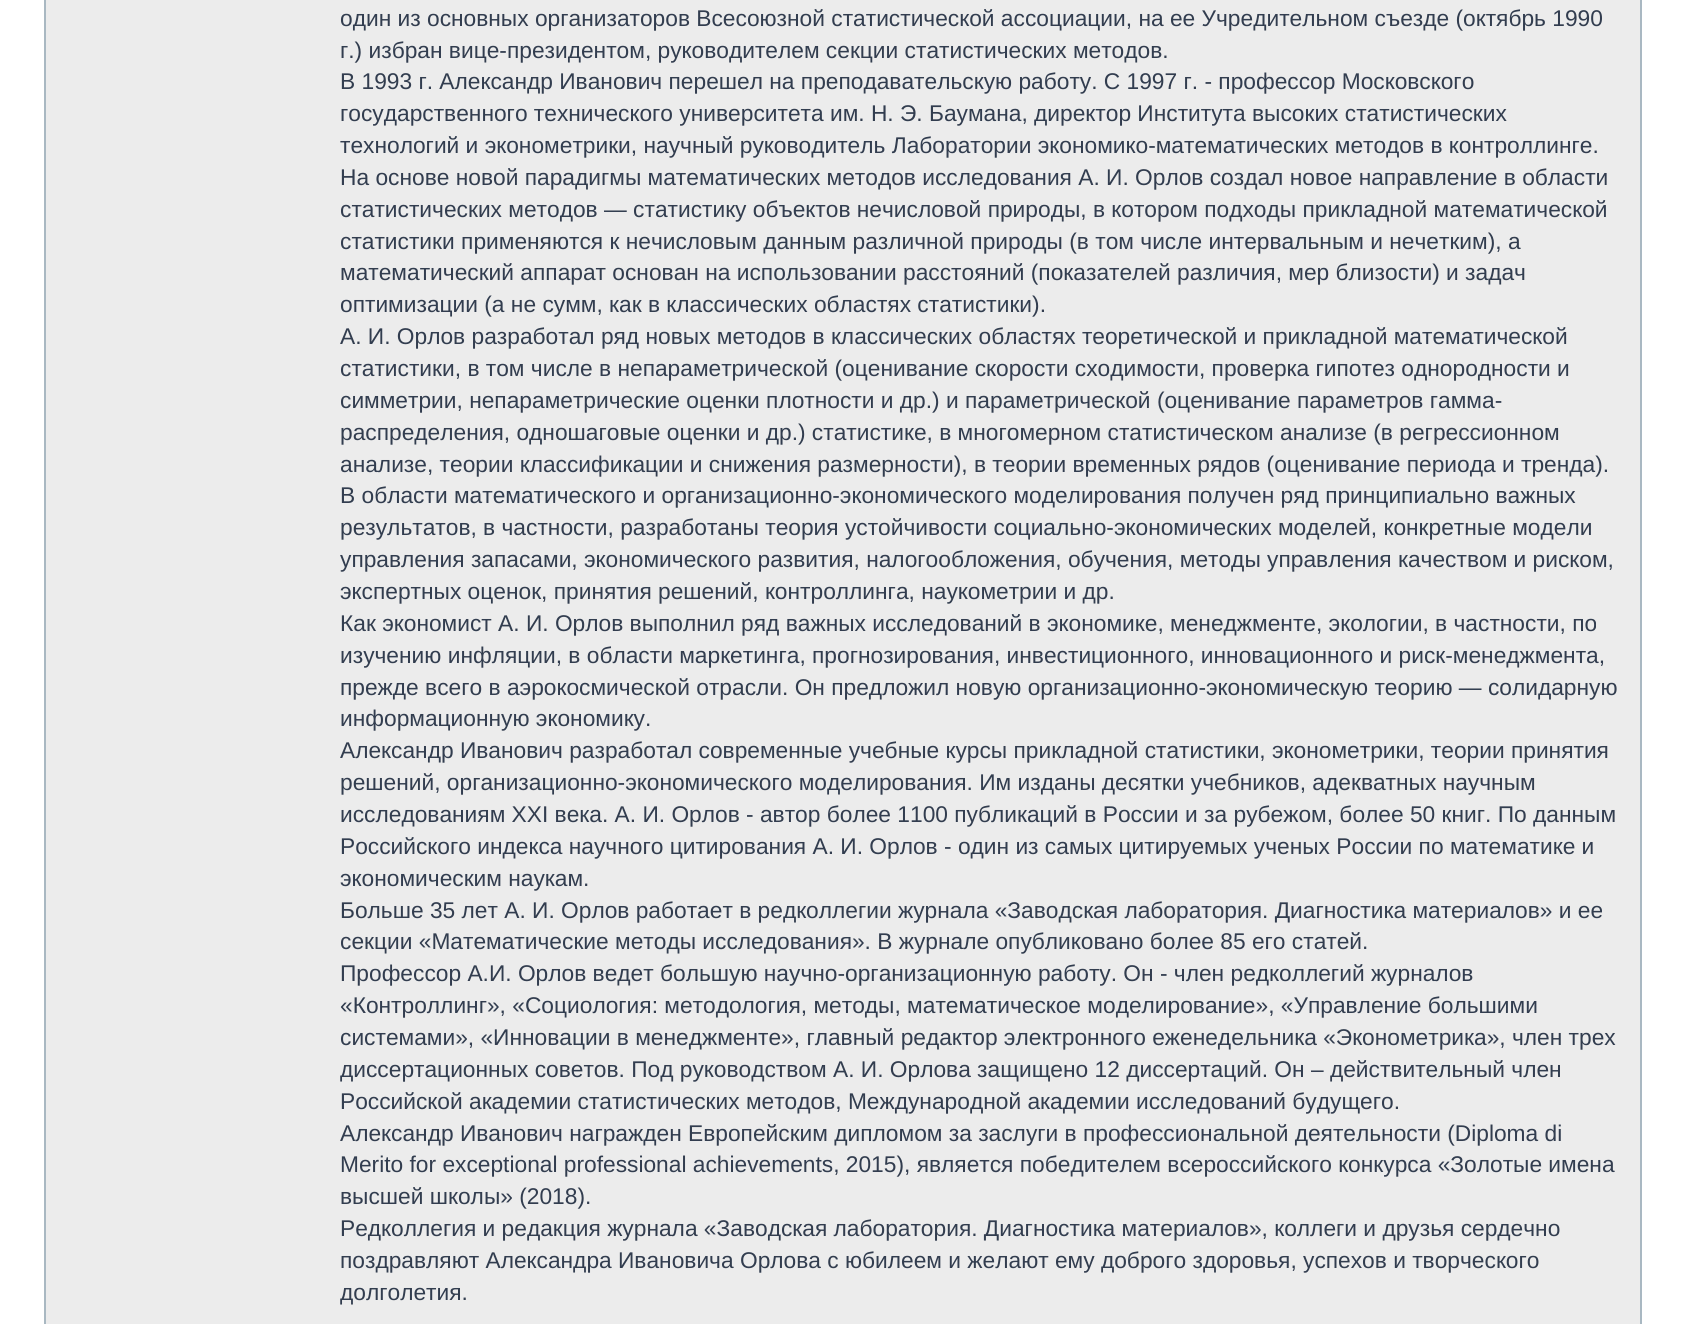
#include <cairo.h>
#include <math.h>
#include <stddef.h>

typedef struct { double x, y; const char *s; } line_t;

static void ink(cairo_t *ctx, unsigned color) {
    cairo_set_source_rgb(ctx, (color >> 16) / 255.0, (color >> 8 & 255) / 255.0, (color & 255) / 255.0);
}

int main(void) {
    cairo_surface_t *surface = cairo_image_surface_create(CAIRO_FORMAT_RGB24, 1685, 1324);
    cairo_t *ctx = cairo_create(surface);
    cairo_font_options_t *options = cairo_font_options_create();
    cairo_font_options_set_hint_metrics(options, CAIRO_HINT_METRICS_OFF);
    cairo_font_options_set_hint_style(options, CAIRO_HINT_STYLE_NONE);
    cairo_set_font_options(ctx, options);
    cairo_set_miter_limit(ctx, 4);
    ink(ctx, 0xFFFFFF);
    cairo_paint(ctx);
    ink(ctx, 0xA9B8C2);
    cairo_rectangle(ctx, 44, 0, 1598, 1324);
    cairo_fill(ctx);
    ink(ctx, 0xECECEC);
    cairo_rectangle(ctx, 46, 0, 1594, 1324);
    cairo_fill(ctx);
    cairo_select_font_face(ctx, "Liberation Sans", CAIRO_FONT_SLANT_NORMAL, CAIRO_FONT_WEIGHT_NORMAL);
    cairo_set_font_size(ctx, 22.75);
    ink(ctx, 0x323D4F);
    {
        static const line_t items[] = {
            {340, 26, "один из основных организаторов Всесоюзной статистической ассоциации, на ее Учредительном съезде (октябрь 1990"},
            {340, 58, "г.) избран вице-президентом, руководителем секции статистических методов."},
            {340, 89, "В 1993 г. Александр Иванович перешел на преподавательскую работу. С 1997 г. - профессор Московского"},
            {340, 121, "государственного технического университета им. Н. Э. Баумана, директор Института высоких статистических"},
            {340, 153, "технологий и эконометрики, научный руководитель Лаборатории экономико-математических методов в контроллинге."},
            {340, 185, "На основе новой парадигмы математических методов исследования А. И. Орлов создал новое направление в области"},
            {340, 217, "статистических методов — статистику объектов нечисловой природы, в котором подходы прикладной математической"},
            {340, 249, "статистики применяются к нечисловым данным различной природы (в том числе интервальным и нечетким), а"},
            {340, 280, "математический аппарат основан на использовании расстояний (показателей различия, мер близости) и задач"},
            {340, 312, "оптимизации (а не сумм, как в классических областях статистики)."},
            {340, 344, "А. И. Орлов разработал ряд новых методов в классических областях теоретической и прикладной математической"},
            {340, 376, "статистики, в том числе в непараметрической (оценивание скорости сходимости, проверка гипотез однородности и"},
            {340, 408, "симметрии, непараметрические оценки плотности и др.) и параметрической (оценивание параметров гамма-"},
            {340, 440, "распределения, одношаговые оценки и др.) статистике, в многомерном статистическом анализе (в регрессионном"},
            {340, 472, "анализе, теории классификации и снижения размерности), в теории временных рядов (оценивание периода и тренда)."},
            {340, 503, "В области математического и организационно-экономического моделирования получен ряд принципиально важных"},
            {340, 535, "результатов, в частности, разработаны теория устойчивости социально-экономических моделей, конкретные модели"},
            {340, 567, "управления запасами, экономического развития, налогообложения, обучения, методы управления качеством и риском,"},
            {340, 599, "экспертных оценок, принятия решений, контроллинга, наукометрии и др."},
            {340, 631, "Как экономист А. И. Орлов выполнил ряд важных исследований в экономике, менеджменте, экологии, в частности, по"},
            {340, 663, "изучению инфляции, в области маркетинга, прогнозирования, инвестиционного, инновационного и риск-менеджмента,"},
            {340, 695, "прежде всего в аэрокосмической отрасли. Он предложил новую организационно-экономическую теорию — солидарную"},
            {340, 726, "информационную экономику."},
            {340, 758, "Александр Иванович разработал современные учебные курсы прикладной статистики, эконометрики, теории принятия"},
            {340, 790, "решений, организационно-экономического моделирования. Им изданы десятки учебников, адекватных научным"},
            {340, 822, "исследованиям XXI века. А. И. Орлов - автор более 1100 публикаций в России и за рубежом, более 50 книг. По данным"},
            {340, 854, "Российского индекса научного цитирования А. И. Орлов - один из самых цитируемых ученых России по математике и"},
            {340, 886, "экономическим наукам."},
            {340, 918, "Больше 35 лет А. И. Орлов работает в редколлегии журнала «Заводская лаборатория. Диагностика материалов» и ее"},
            {340, 949, "секции «Математические методы исследования». В журнале опубликовано более 85 его статей."},
            {340, 981, "Профессор А.И. Орлов ведет большую научно-организационную работу. Он - член редколлегий журналов"},
            {340, 1013, "«Контроллинг», «Социология: методология, методы, математическое моделирование», «Управление большими"},
            {340, 1045, "системами», «Инновации в менеджменте», главный редактор электронного еженедельника «Эконометрика», член трех"},
            {340, 1077, "диссертационных советов. Под руководством А. И. Орлова защищено 12 диссертаций. Он – действительный член"},
            {340, 1109, "Российской академии статистических методов, Международной академии исследований будущего."},
            {340, 1141, "Александр Иванович награжден Европейским дипломом за заслуги в профессиональной деятельности (Diploma di"},
            {340, 1172, "Merito for exceptional professional achievements, 2015), является победителем всероссийского конкурса «Золотые имена"},
            {340, 1204, "высшей школы» (2018)."},
            {340, 1236, "Редколлегия и редакция журнала «Заводская лаборатория. Диагностика материалов», коллеги и друзья сердечно"},
            {340, 1268, "поздравляют Александра Ивановича Орлова с юбилеем и желают ему доброго здоровья, успехов и творческого"},
            {340, 1300, "долголетия."},
        };
        for (size_t i = 0; i < sizeof items / sizeof *items; i++) {
            cairo_move_to(ctx, items[i].x, items[i].y);
            cairo_show_text(ctx, items[i].s);
        }
    }
    cairo_surface_write_to_png(surface, "image.png");
    cairo_font_options_destroy(options);
    cairo_destroy(ctx);
    cairo_surface_destroy(surface);
    return 0;
}
